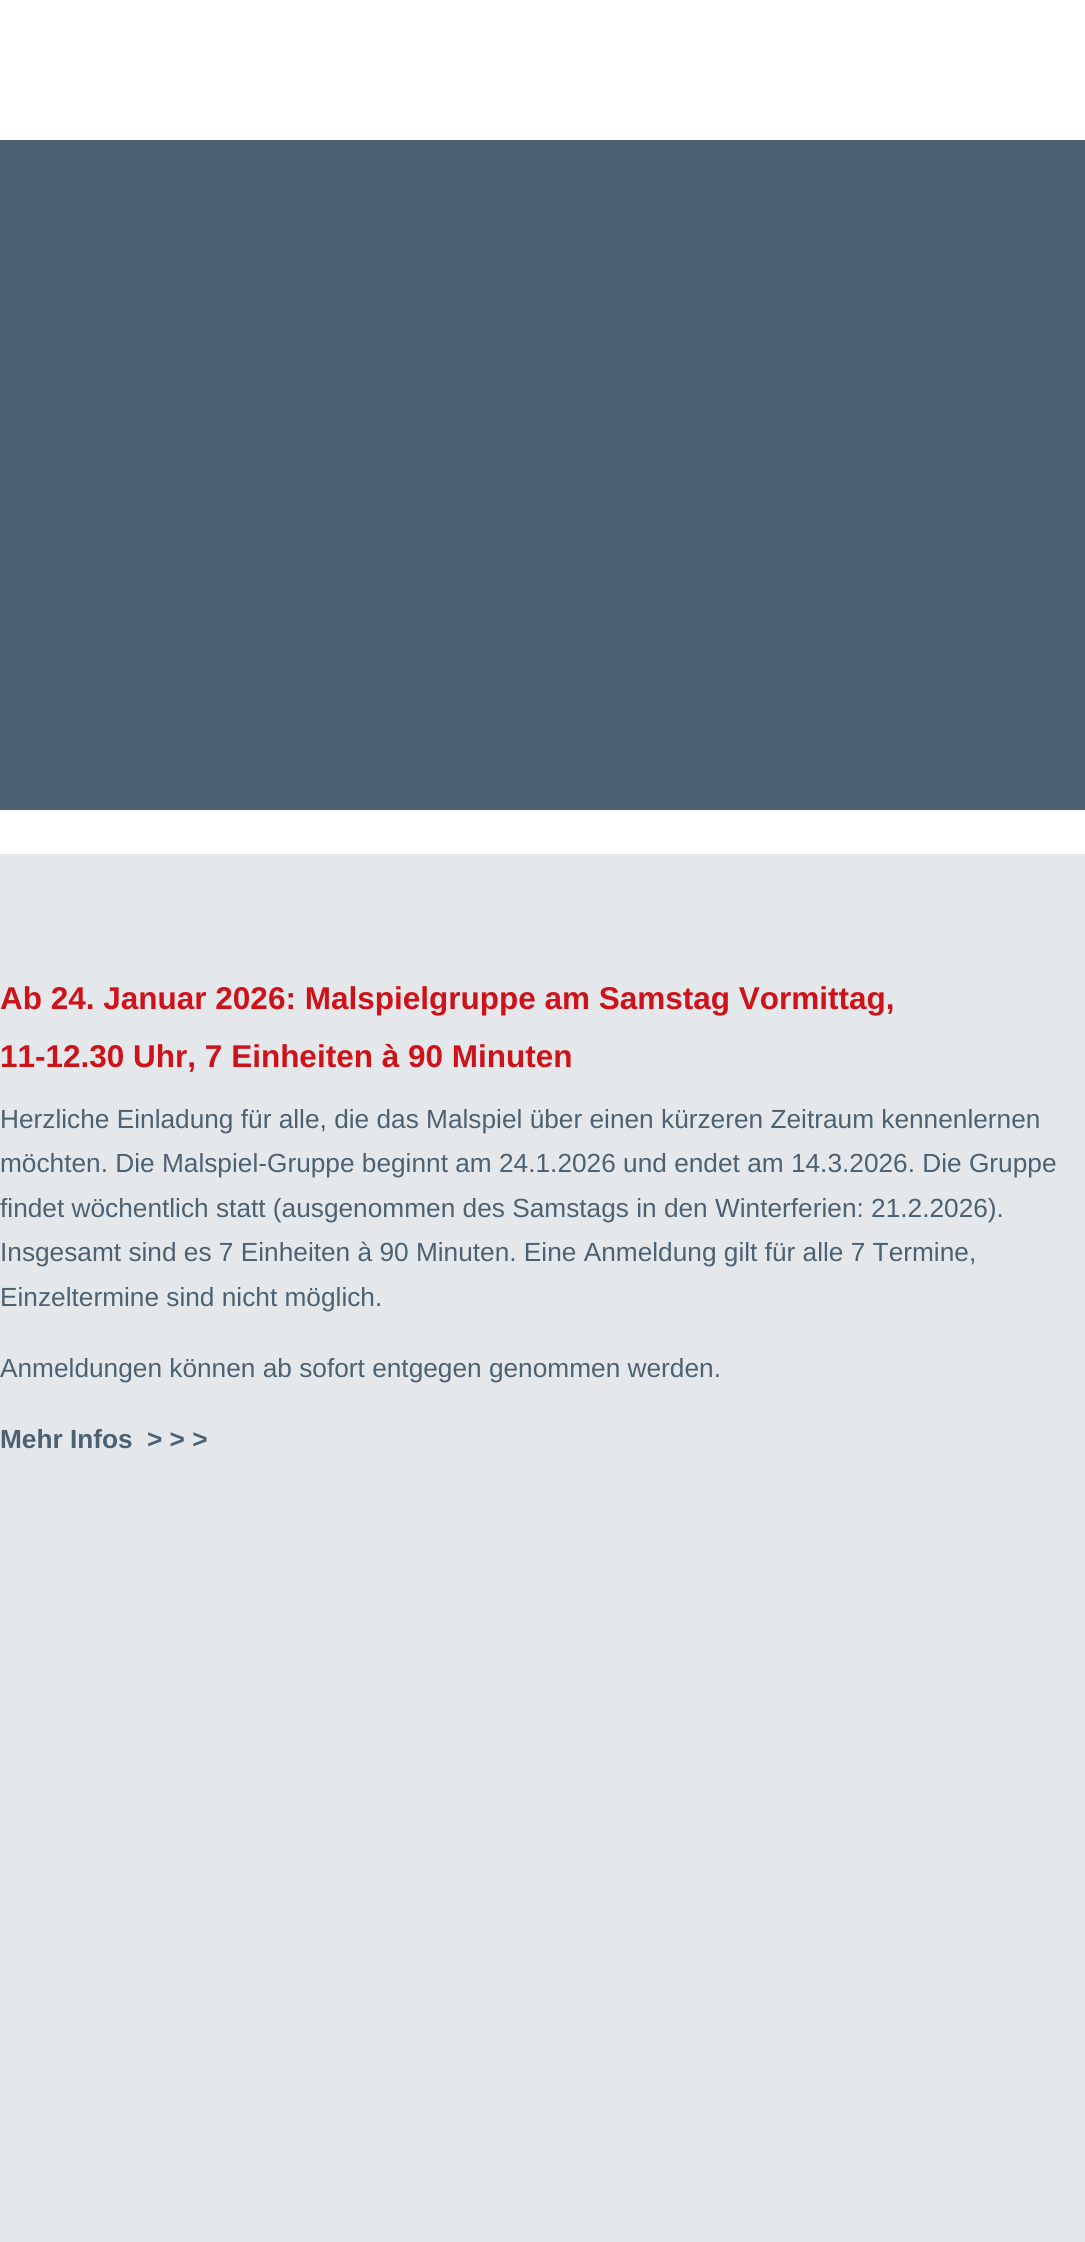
#include <cairo.h>
#include <math.h>
#include <stddef.h>

typedef struct { double x, y; const char *s; } line_t;

static void ink(cairo_t *ctx, unsigned color) {
    cairo_set_source_rgb(ctx, (color >> 16) / 255.0, (color >> 8 & 255) / 255.0, (color & 255) / 255.0);
}

int main(void) {
    cairo_surface_t *surface = cairo_image_surface_create(CAIRO_FORMAT_RGB24, 1085, 2242);
    cairo_t *ctx = cairo_create(surface);
    cairo_font_options_t *options = cairo_font_options_create();
    cairo_font_options_set_hint_metrics(options, CAIRO_HINT_METRICS_OFF);
    cairo_font_options_set_hint_style(options, CAIRO_HINT_STYLE_NONE);
    cairo_set_font_options(ctx, options);
    cairo_set_miter_limit(ctx, 4);
    ink(ctx, 0xFFFFFF);
    cairo_paint(ctx);
    ink(ctx, 0x4C6172);
    cairo_rectangle(ctx, 0, 140, 1085, 670);
    cairo_fill(ctx);
    ink(ctx, 0xE5E8EB);
    cairo_rectangle(ctx, 0, 854, 1085, 1388);
    cairo_fill(ctx);
    cairo_select_font_face(ctx, "Liberation Sans", CAIRO_FONT_SLANT_NORMAL, CAIRO_FONT_WEIGHT_BOLD);
    cairo_set_font_size(ctx, 31.5);
    ink(ctx, 0xCE1219);
    cairo_move_to(ctx, 0, 1009);
    cairo_show_text(ctx, "Ab 24. Januar 2026: Malspielgruppe am Samstag Vormittag,");
    cairo_move_to(ctx, 0, 1067);
    cairo_show_text(ctx, "11-12.30 Uhr, 7 Einheiten à 90 Minuten");
    cairo_select_font_face(ctx, "Liberation Sans", CAIRO_FONT_SLANT_NORMAL, CAIRO_FONT_WEIGHT_NORMAL);
    cairo_set_font_size(ctx, 26.25);
    ink(ctx, 0x4C6172);
    {
        static const line_t items[] = {
            {0, 1128, "Herzliche Einladung für alle, die das Malspiel über einen kürzeren Zeitraum kennenlernen"},
            {0, 1172, "möchten. Die Malspiel-Gruppe beginnt am 24.1.2026 und endet am 14.3.2026. Die Gruppe"},
            {0, 1217, "findet wöchentlich statt (ausgenommen des Samstags in den Winterferien: 21.2.2026)."},
            {0, 1261, "Insgesamt sind es 7 Einheiten à 90 Minuten. Eine Anmeldung gilt für alle 7 Termine,"},
            {0, 1306, "Einzeltermine sind nicht möglich."},
            {0, 1377, "Anmeldungen können ab sofort entgegen genommen werden."},
        };
        for (size_t i = 0; i < sizeof items / sizeof *items; i++) {
            cairo_move_to(ctx, items[i].x, items[i].y);
            cairo_show_text(ctx, items[i].s);
        }
    }
    cairo_select_font_face(ctx, "Liberation Sans", CAIRO_FONT_SLANT_NORMAL, CAIRO_FONT_WEIGHT_BOLD);
    cairo_move_to(ctx, 0, 1448);
    cairo_show_text(ctx, "Mehr Infos");
    cairo_move_to(ctx, 147, 1448);
    cairo_show_text(ctx, "> > >");
    cairo_surface_write_to_png(surface, "image.png");
    cairo_font_options_destroy(options);
    cairo_destroy(ctx);
    cairo_surface_destroy(surface);
    return 0;
}
